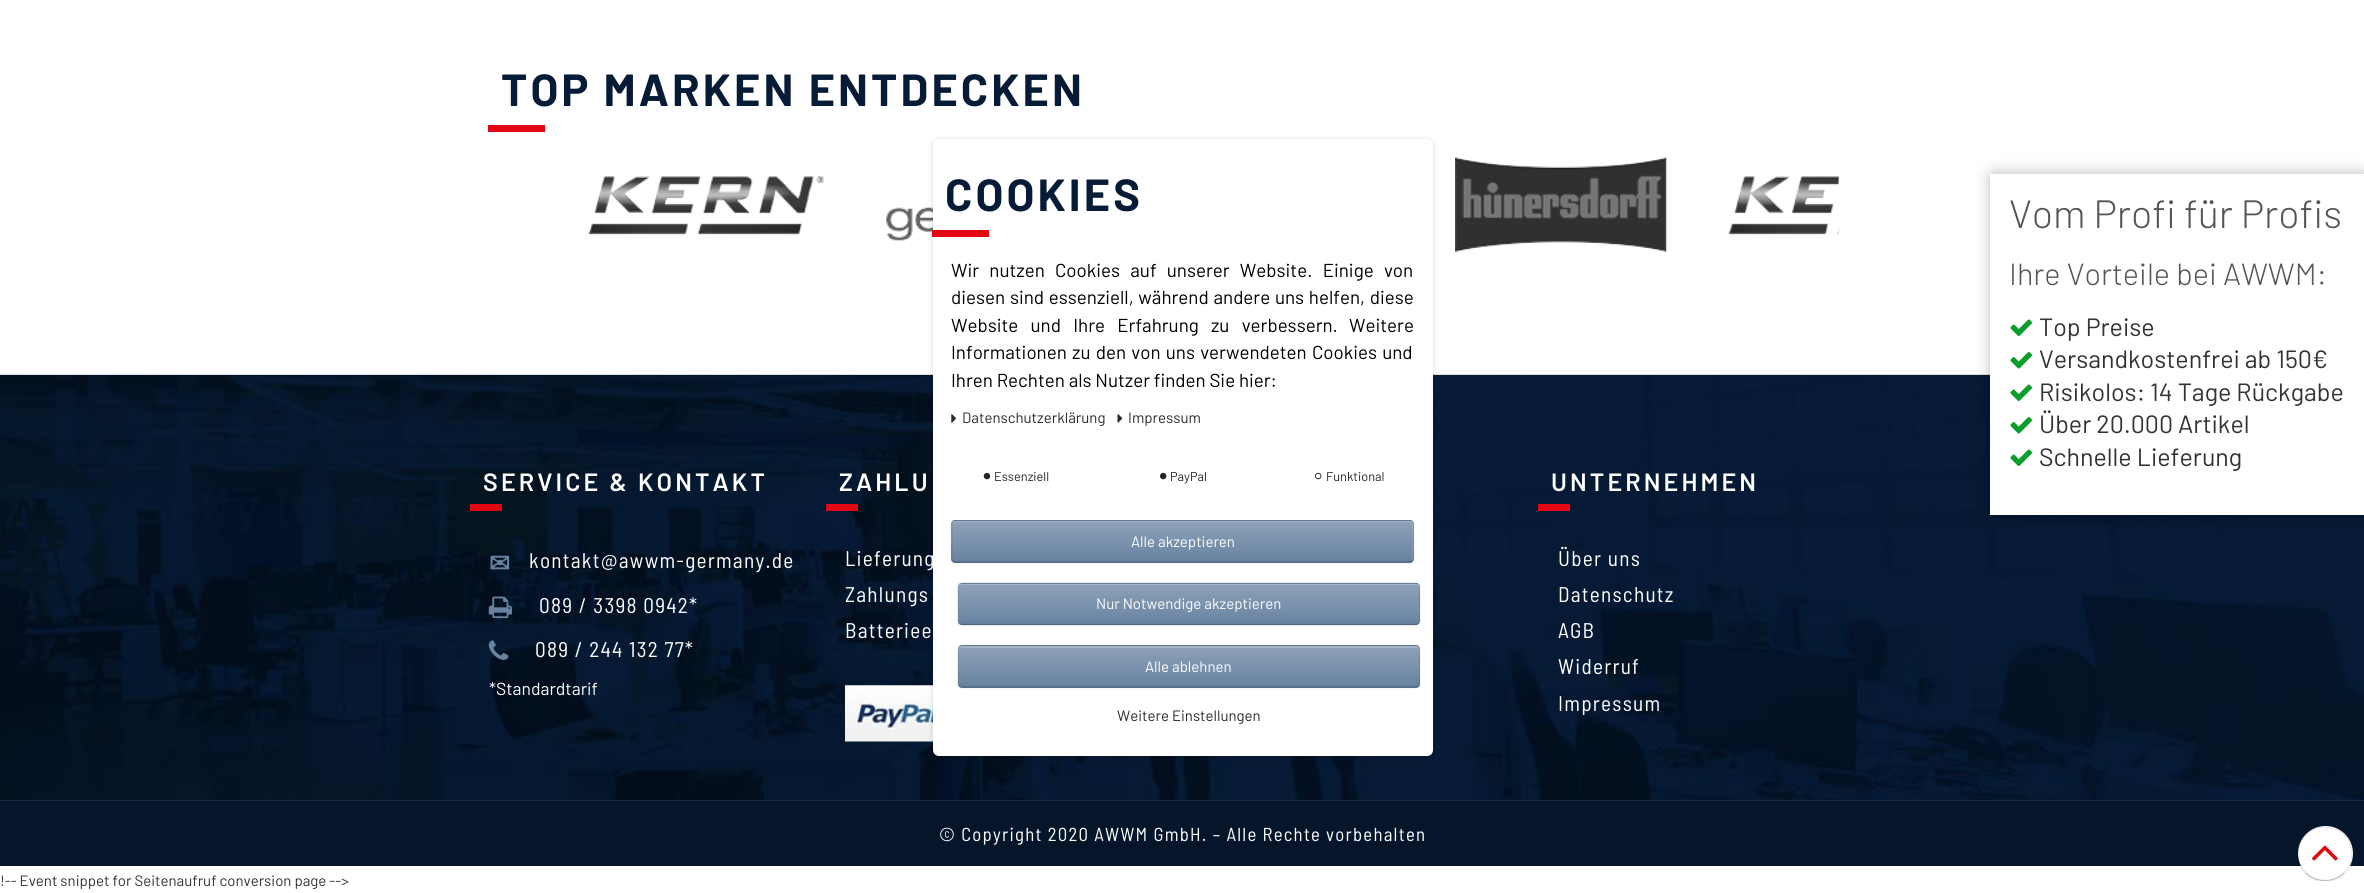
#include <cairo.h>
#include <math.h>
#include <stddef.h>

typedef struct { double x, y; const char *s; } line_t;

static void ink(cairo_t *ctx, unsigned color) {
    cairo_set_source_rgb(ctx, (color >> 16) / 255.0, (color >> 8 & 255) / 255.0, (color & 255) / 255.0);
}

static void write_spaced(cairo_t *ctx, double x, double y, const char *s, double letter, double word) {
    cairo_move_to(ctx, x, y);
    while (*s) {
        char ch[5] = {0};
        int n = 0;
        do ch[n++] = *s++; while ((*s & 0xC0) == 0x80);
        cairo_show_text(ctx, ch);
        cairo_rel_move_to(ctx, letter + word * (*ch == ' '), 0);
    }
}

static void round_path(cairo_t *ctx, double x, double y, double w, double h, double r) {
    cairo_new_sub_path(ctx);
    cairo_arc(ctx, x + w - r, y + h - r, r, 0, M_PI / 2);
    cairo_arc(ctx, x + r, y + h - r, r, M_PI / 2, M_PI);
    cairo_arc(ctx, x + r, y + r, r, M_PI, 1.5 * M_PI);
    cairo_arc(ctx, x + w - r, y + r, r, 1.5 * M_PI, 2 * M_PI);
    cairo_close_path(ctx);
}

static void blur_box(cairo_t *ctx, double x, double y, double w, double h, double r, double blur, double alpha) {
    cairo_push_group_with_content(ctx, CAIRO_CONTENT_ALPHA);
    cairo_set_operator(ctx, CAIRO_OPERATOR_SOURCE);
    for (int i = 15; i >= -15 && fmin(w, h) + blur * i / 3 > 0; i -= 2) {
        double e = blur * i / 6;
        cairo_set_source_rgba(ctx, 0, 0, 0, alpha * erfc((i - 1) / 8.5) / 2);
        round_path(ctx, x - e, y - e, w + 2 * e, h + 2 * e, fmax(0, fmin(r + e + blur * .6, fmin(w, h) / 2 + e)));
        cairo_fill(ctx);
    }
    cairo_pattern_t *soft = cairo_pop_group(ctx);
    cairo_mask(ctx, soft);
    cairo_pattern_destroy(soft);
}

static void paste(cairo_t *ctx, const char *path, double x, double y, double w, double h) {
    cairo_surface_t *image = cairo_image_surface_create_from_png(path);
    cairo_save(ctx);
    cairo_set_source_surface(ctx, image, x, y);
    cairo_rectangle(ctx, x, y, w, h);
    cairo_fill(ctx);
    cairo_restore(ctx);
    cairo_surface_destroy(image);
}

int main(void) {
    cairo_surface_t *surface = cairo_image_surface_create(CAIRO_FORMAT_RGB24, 2364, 893);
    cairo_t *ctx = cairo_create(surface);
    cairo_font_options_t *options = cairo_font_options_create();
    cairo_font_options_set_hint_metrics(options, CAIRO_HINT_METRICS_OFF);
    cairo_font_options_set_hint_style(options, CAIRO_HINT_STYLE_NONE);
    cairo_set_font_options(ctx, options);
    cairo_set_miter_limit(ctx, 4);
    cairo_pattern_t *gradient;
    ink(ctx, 0xFFFFFF);
    cairo_paint(ctx);
    ink(ctx, 0xE40613);
    cairo_rectangle(ctx, 488, 125, 57, 7);
    cairo_fill(ctx);
    cairo_select_font_face(ctx, "Barlow", CAIRO_FONT_SLANT_NORMAL, CAIRO_FONT_WEIGHT_BOLD);
    cairo_set_font_size(ctx, 45);
    ink(ctx, 0x061B36);
    write_spaced(ctx, 501, 106, "TOP MARKEN ENTDECKEN", 3.1, 0);
    paste(ctx, "media/1.png", 588, 176, 236, 59);
    paste(ctx, "media/2.png", 886, 206, 47, 35);
    paste(ctx, "media/3.png", 1455, 157, 212, 96);
    paste(ctx, "media/4.png", 1728, 176, 111, 59);
    paste(ctx, "media/7.png", 0, 375, 2364, 425);
    ink(ctx, 0xDDDDDD);
    cairo_rectangle(ctx, 0, 374, 1990, 1);
    cairo_fill(ctx);
    ink(ctx, 0x000000);
    blur_box(ctx, 1993, 176, 370, 337, 0, 9, 0.34);
    ink(ctx, 0xFFFFFF);
    cairo_rectangle(ctx, 1990, 174, 374, 341);
    cairo_fill(ctx);
    cairo_select_font_face(ctx, "Barlow Light", CAIRO_FONT_SLANT_NORMAL, CAIRO_FONT_WEIGHT_NORMAL);
    cairo_set_font_size(ctx, 39.4);
    ink(ctx, 0x555555);
    cairo_move_to(ctx, 2009, 228);
    cairo_show_text(ctx, "Vom Profi für Profis");
    cairo_set_font_size(ctx, 30.6);
    cairo_move_to(ctx, 2009, 285);
    cairo_show_text(ctx, "Ihre Vorteile bei AWWM:");
    paste(ctx, "media/5.png", 2010, 319, 22, 17);
    cairo_select_font_face(ctx, "Barlow", CAIRO_FONT_SLANT_NORMAL, CAIRO_FONT_WEIGHT_NORMAL);
    cairo_set_font_size(ctx, 25);
    ink(ctx, 0x333333);
    cairo_move_to(ctx, 2039, 336);
    cairo_show_text(ctx, "Top Preise");
    paste(ctx, "media/6.png", 2010, 352, 22, 17);
    cairo_move_to(ctx, 2039, 368);
    cairo_show_text(ctx, "Versandkostenfrei ab 150€");
    paste(ctx, "media/5.png", 2010, 384, 22, 17);
    cairo_move_to(ctx, 2039, 401);
    cairo_show_text(ctx, "Risikolos: 14 Tage Rückgabe");
    paste(ctx, "media/6.png", 2010, 417, 22, 17);
    cairo_move_to(ctx, 2039, 433);
    cairo_show_text(ctx, "Über 20.000 Artikel");
    paste(ctx, "media/5.png", 2010, 449, 22, 17);
    cairo_move_to(ctx, 2039, 466);
    cairo_show_text(ctx, "Schnelle Lieferung");
    ink(ctx, 0xE40613);
    cairo_rectangle(ctx, 470, 504, 32, 7);
    cairo_fill(ctx);
    cairo_select_font_face(ctx, "Barlow SemiBold", CAIRO_FONT_SLANT_NORMAL, CAIRO_FONT_WEIGHT_NORMAL);
    ink(ctx, 0xFFFFFF);
    write_spaced(ctx, 483, 491, "SERVICE & KONTAKT", 3.1, 0);
    cairo_select_font_face(ctx, "DejaVu Sans", CAIRO_FONT_SLANT_NORMAL, CAIRO_FONT_WEIGHT_BOLD);
    ink(ctx, 0x6883A1);
    write_spaced(ctx, 489, 572, "✉", 1.25, 0);
    cairo_select_font_face(ctx, "Barlow Semi Condensed", CAIRO_FONT_SLANT_NORMAL, CAIRO_FONT_WEIGHT_NORMAL);
    cairo_set_font_size(ctx, 21.25);
    ink(ctx, 0xFFFFFF);
    write_spaced(ctx, 529, 568, "kontakt@awwm-germany.de", 1.25, 0);
    paste(ctx, "media/8.png", 488, 596, 24, 23);
    write_spaced(ctx, 539, 613, "089 / 3398 0942*", 1.25, 0);
    paste(ctx, "media/9.png", 488, 640, 21, 20);
    write_spaced(ctx, 535, 657, "089 / 244 132 77*", 1.25, 0);
    cairo_select_font_face(ctx, "Barlow", CAIRO_FONT_SLANT_NORMAL, CAIRO_FONT_WEIGHT_NORMAL);
    cairo_set_font_size(ctx, 17.5);
    cairo_move_to(ctx, 489, 695);
    cairo_show_text(ctx, "*Standardtarif");
    ink(ctx, 0xE40613);
    cairo_rectangle(ctx, 826, 504, 32, 7);
    cairo_fill(ctx);
    cairo_select_font_face(ctx, "Barlow SemiBold", CAIRO_FONT_SLANT_NORMAL, CAIRO_FONT_WEIGHT_NORMAL);
    cairo_set_font_size(ctx, 25);
    ink(ctx, 0xFFFFFF);
    write_spaced(ctx, 839, 491, "ZAHLU", 3.1, 0);
    cairo_select_font_face(ctx, "Barlow Semi Condensed", CAIRO_FONT_SLANT_NORMAL, CAIRO_FONT_WEIGHT_NORMAL);
    cairo_set_font_size(ctx, 21.25);
    {
        static const line_t items[] = {
            {845, 566, "Lieferung"},
            {845, 602, "Zahlungs"},
            {845, 638, "Batteriee"},
        };
        for (size_t i = 0; i < sizeof items / sizeof *items; i++) {
            write_spaced(ctx, items[i].x, items[i].y, items[i].s, 1.25, 0);
        }
    }
    paste(ctx, "media/10.png", 845, 685, 88, 57);
    ink(ctx, 0xE40613);
    cairo_rectangle(ctx, 1538, 504, 32, 7);
    cairo_fill(ctx);
    cairo_select_font_face(ctx, "Barlow SemiBold", CAIRO_FONT_SLANT_NORMAL, CAIRO_FONT_WEIGHT_NORMAL);
    cairo_set_font_size(ctx, 25);
    ink(ctx, 0xFFFFFF);
    write_spaced(ctx, 1551, 491, "UNTERNEHMEN", 3.1, 0);
    cairo_select_font_face(ctx, "Barlow Semi Condensed", CAIRO_FONT_SLANT_NORMAL, CAIRO_FONT_WEIGHT_NORMAL);
    cairo_set_font_size(ctx, 21.25);
    {
        static const line_t items[] = {
            {1558, 566, "Über uns"},
            {1558, 602, "Datenschutz"},
            {1558, 638, "AGB"},
            {1558, 674, "Widerruf"},
            {1558, 711, "Impressum"},
        };
        for (size_t i = 0; i < sizeof items / sizeof *items; i++) {
            write_spaced(ctx, items[i].x, items[i].y, items[i].s, 1.25, 0);
        }
    }
    ink(ctx, 0x05162B);
    cairo_rectangle(ctx, 0, 801, 2364, 65);
    cairo_fill(ctx);
    ink(ctx, 0x1B2C41);
    cairo_rectangle(ctx, 0, 800, 2364, 1);
    cairo_fill(ctx);
    cairo_set_font_size(ctx, 18.75);
    ink(ctx, 0xFFFFFF);
    write_spaced(ctx, 939, 841, "© Copyright 2020 AWWM GmbH. – Alle Rechte vorbehalten", 1.25, 0);
    cairo_save(ctx);
    cairo_rectangle(ctx, 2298, 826, 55, 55);
    cairo_clip(ctx);
    ink(ctx, 0x000000);
    blur_box(ctx, 2298, 828, 55, 55, 27.5, 1, 0.05);
    cairo_restore(ctx);
    cairo_arc(ctx, 2325.5, 853.5, 27.5, 0, 2 * M_PI);
    cairo_fill(ctx);
    cairo_new_path(ctx);
    cairo_move_to(ctx, 2344, 873);
    cairo_curve_to(ctx, 2333.5, 883, 2316.5, 883, 2306, 873);
    cairo_set_source_rgba(ctx, 0, 0, 0, 0.25);
    cairo_set_line_width(ctx, 1.2);
    cairo_stroke(ctx);
    cairo_new_path(ctx);
    cairo_move_to(ctx, 2306, 873);
    cairo_curve_to(ctx, 2299.5, 866.5, 2297, 857, 2298.5, 848.5);
    cairo_curve_to(ctx, 2305, 817, 2352, 821.5, 2352, 854);
    cairo_curve_to(ctx, 2352, 861, 2349, 867.5, 2344, 873);
    cairo_set_source_rgba(ctx, 0, 0, 0, 0.1);
    cairo_stroke(ctx);
    paste(ctx, "media/11.png", 2312, 845, 26, 16);
    ink(ctx, 0x000000);
    blur_box(ctx, 933, 140, 500, 618, 6, 3, 0.15);
    ink(ctx, 0xFFFFFF);
    round_path(ctx, 933, 139, 500, 617, 6);
    cairo_fill(ctx);
    ink(ctx, 0xE40613);
    cairo_rectangle(ctx, 932, 230, 57, 7);
    cairo_fill(ctx);
    cairo_select_font_face(ctx, "Barlow", CAIRO_FONT_SLANT_NORMAL, CAIRO_FONT_WEIGHT_BOLD);
    cairo_set_font_size(ctx, 45);
    ink(ctx, 0x061B36);
    write_spaced(ctx, 945, 211, "COOKIES", 3.1, 0);
    cairo_select_font_face(ctx, "Barlow", CAIRO_FONT_SLANT_NORMAL, CAIRO_FONT_WEIGHT_NORMAL);
    cairo_set_font_size(ctx, 18.75);
    ink(ctx, 0x000000);
    write_spaced(ctx, 951, 277, "Wir nutzen Cookies auf unserer Website. Einige von", 0, 6.5);
    write_spaced(ctx, 951, 304, "diesen sind essenziell, während andere uns helfen, diese", 0, 1);
    write_spaced(ctx, 951, 332, "Website und Ihre Erfahrung zu verbessern.", 0, 8.5);
    cairo_move_to(ctx, 1349, 332);
    cairo_show_text(ctx, "Weitere");
    write_spaced(ctx, 951, 359, "Informationen zu den von uns verwendeten Cookies und", 0, 1.5);
    cairo_move_to(ctx, 951, 387);
    cairo_show_text(ctx, "Ihren Rechten als Nutzer finden Sie hier:");
    paste(ctx, "media/12.png", 951, 414, 5, 9);
    cairo_set_font_size(ctx, 15);
    ink(ctx, 0x2A2A29);
    cairo_move_to(ctx, 962, 423);
    cairo_show_text(ctx, "Datenschutzerklärung");
    paste(ctx, "media/13.png", 1117, 414, 6, 9);
    cairo_move_to(ctx, 1128, 423);
    cairo_show_text(ctx, "Impressum");
    paste(ctx, "media/14.png", 983, 472, 8, 8);
    cairo_set_font_size(ctx, 12.75);
    ink(ctx, 0x212529);
    cairo_move_to(ctx, 994, 481);
    cairo_show_text(ctx, "Essenziell");
    paste(ctx, "media/15.png", 1160, 472, 7, 8);
    cairo_move_to(ctx, 1170, 481);
    cairo_show_text(ctx, "PayPal");
    paste(ctx, "media/16.png", 1315, 472, 7, 8);
    cairo_move_to(ctx, 1326, 481);
    cairo_show_text(ctx, "Funktional");
    ink(ctx, 0x000000);
    blur_box(ctx, 951, 521, 463, 43, 4, 1, 0.05);
    ink(ctx, 0x6883A1);
    round_path(ctx, 951, 520, 463, 43, 4);
    cairo_fill(ctx);
    cairo_save(ctx);
    round_path(ctx, 951, 520, 463, 43, 4);
    cairo_clip(ctx);
    gradient = cairo_pattern_create_linear(1183, 521, 1183, 561);
    cairo_pattern_add_color_stop_rgba(gradient, 0, 1, 1, 1, 0.25);
    cairo_pattern_add_color_stop_rgba(gradient, 1, 1, 1, 1, 0);
    cairo_set_source(ctx, gradient);
    cairo_pattern_destroy(gradient);
    cairo_rectangle(ctx, 951, 521, 463, 37);
    cairo_fill(ctx);
    cairo_restore(ctx);
    cairo_set_source_rgba(ctx, 1, 1, 1, 0.2);
    cairo_new_path(ctx);
    cairo_move_to(ctx, 955, 522);
    cairo_line_to(ctx, 1410, 522);
    cairo_curve_to(ctx, 1413, 522, 1412, 536, 1412, 537);
    cairo_line_to(ctx, 1412, 561);
    cairo_curve_to(ctx, 1413, 560, 1413, 559, 1413, 558);
    cairo_line_to(ctx, 1413, 524);
    cairo_curve_to(ctx, 1413, 522, 1412, 521, 1410, 521);
    cairo_line_to(ctx, 956, 521);
    cairo_curve_to(ctx, 954, 521, 953, 522, 953, 523);
    cairo_close_path(ctx);
    cairo_fill(ctx);
    cairo_new_path(ctx);
    cairo_move_to(ctx, 1412, 561);
    cairo_line_to(ctx, 1410, 562);
    cairo_line_to(ctx, 955, 562);
    cairo_line_to(ctx, 953, 561);
    ink(ctx, 0x4E6279);
    cairo_stroke(ctx);
    cairo_new_path(ctx);
    cairo_move_to(ctx, 953, 561);
    cairo_curve_to(ctx, 951, 559, 952, 554.5, 952, 553);
    cairo_line_to(ctx, 952, 529.5);
    cairo_curve_to(ctx, 952, 527.5, 950.5, 520.5, 955, 520.5);
    cairo_line_to(ctx, 1410, 520.5);
    cairo_curve_to(ctx, 1414.5, 520.5, 1413, 527.5, 1413, 529.5);
    cairo_line_to(ctx, 1413, 553);
    cairo_curve_to(ctx, 1413, 554.5, 1414, 559, 1412, 561);
    cairo_set_source_rgba(ctx, 0, 0, 0, 0.1);
    cairo_stroke(ctx);
    cairo_set_font_size(ctx, 15);
    ink(ctx, 0xFFFFFF);
    cairo_move_to(ctx, 1131, 547);
    cairo_show_text(ctx, "Alle akzeptieren");
    ink(ctx, 0x000000);
    blur_box(ctx, 958, 584, 462, 42, 4, 1, 0.05);
    ink(ctx, 0x6883A1);
    round_path(ctx, 958, 583, 462, 42, 4);
    cairo_fill(ctx);
    cairo_save(ctx);
    round_path(ctx, 958, 583, 462, 42, 4);
    cairo_clip(ctx);
    gradient = cairo_pattern_create_linear(1189, 584, 1189, 624);
    cairo_pattern_add_color_stop_rgba(gradient, 0, 1, 1, 1, 0.25);
    cairo_pattern_add_color_stop_rgba(gradient, 1, 1, 1, 1, 0);
    cairo_set_source(ctx, gradient);
    cairo_pattern_destroy(gradient);
    cairo_rectangle(ctx, 958, 584, 462, 37);
    cairo_fill(ctx);
    cairo_restore(ctx);
    ink(ctx, 0xA4B4C6);
    cairo_new_path(ctx);
    cairo_move_to(ctx, 961, 585);
    cairo_line_to(ctx, 1416, 585);
    cairo_curve_to(ctx, 1418, 585, 1419, 586, 1419, 588);
    cairo_curve_to(ctx, 1419, 586, 1419, 584, 1416, 584);
    cairo_line_to(ctx, 962, 584);
    cairo_line_to(ctx, 959, 585);
    cairo_line_to(ctx, 959, 588);
    cairo_curve_to(ctx, 959, 586, 960, 585, 961, 585);
    cairo_close_path(ctx);
    cairo_fill(ctx);
    cairo_new_path(ctx);
    cairo_move_to(ctx, 1418.5, 623.5);
    cairo_line_to(ctx, 1416, 624.5);
    cairo_line_to(ctx, 961, 624.5);
    cairo_line_to(ctx, 959, 623.5);
    cairo_set_source_rgba(ctx, 0, 0, 0, 0.25);
    cairo_stroke(ctx);
    cairo_new_path(ctx);
    cairo_move_to(ctx, 959, 623.5);
    cairo_curve_to(ctx, 957, 621.5, 958, 617, 958, 615.5);
    cairo_line_to(ctx, 958, 592);
    cairo_curve_to(ctx, 958, 590, 957, 583, 961, 583);
    cairo_line_to(ctx, 1416, 583);
    cairo_curve_to(ctx, 1420.5, 583, 1419.5, 590, 1419.5, 592);
    cairo_line_to(ctx, 1419.5, 615.5);
    cairo_curve_to(ctx, 1419.5, 617, 1420.5, 621.5, 1418.5, 623.5);
    cairo_set_source_rgba(ctx, 0, 0, 0, 0.1);
    cairo_stroke(ctx);
    ink(ctx, 0xFFFFFF);
    cairo_move_to(ctx, 1096, 609);
    cairo_show_text(ctx, "Nur Notwendige akzeptieren");
    ink(ctx, 0x000000);
    blur_box(ctx, 958, 646, 462, 43, 4, 1, 0.05);
    ink(ctx, 0x6883A1);
    round_path(ctx, 958, 645, 462, 43, 4);
    cairo_fill(ctx);
    cairo_save(ctx);
    round_path(ctx, 958, 645, 462, 43, 4);
    cairo_clip(ctx);
    gradient = cairo_pattern_create_linear(1189, 646, 1189, 686);
    cairo_pattern_add_color_stop_rgba(gradient, 0, 1, 1, 1, 0.25);
    cairo_pattern_add_color_stop_rgba(gradient, 1, 1, 1, 1, 0);
    cairo_set_source(ctx, gradient);
    cairo_pattern_destroy(gradient);
    cairo_rectangle(ctx, 958, 646, 462, 37);
    cairo_fill(ctx);
    cairo_restore(ctx);
    ink(ctx, 0xA4B4C6);
    cairo_new_path(ctx);
    cairo_move_to(ctx, 961, 648);
    cairo_line_to(ctx, 1416, 648);
    cairo_curve_to(ctx, 1418, 648, 1419, 649, 1419, 650);
    cairo_curve_to(ctx, 1419, 648, 1419, 646, 1416, 646);
    cairo_line_to(ctx, 962, 646);
    cairo_line_to(ctx, 959, 647);
    cairo_line_to(ctx, 959, 650);
    cairo_curve_to(ctx, 959, 649, 960, 648, 961, 648);
    cairo_close_path(ctx);
    cairo_fill(ctx);
    cairo_new_path(ctx);
    cairo_move_to(ctx, 1418.5, 686);
    cairo_line_to(ctx, 1416, 687);
    cairo_line_to(ctx, 961, 687);
    cairo_line_to(ctx, 959, 686);
    cairo_set_source_rgba(ctx, 0, 0, 0, 0.25);
    cairo_stroke(ctx);
    cairo_new_path(ctx);
    cairo_move_to(ctx, 959, 686);
    cairo_curve_to(ctx, 957, 684, 958, 679.5, 958, 678);
    cairo_line_to(ctx, 958, 654.5);
    cairo_curve_to(ctx, 958, 652.5, 957, 645.5, 961, 645.5);
    cairo_line_to(ctx, 1416, 645.5);
    cairo_curve_to(ctx, 1420.5, 645.5, 1419.5, 652.5, 1419.5, 654.5);
    cairo_line_to(ctx, 1419.5, 678);
    cairo_curve_to(ctx, 1419.5, 679.5, 1420.5, 684, 1418.5, 686);
    cairo_set_source_rgba(ctx, 0, 0, 0, 0.1);
    cairo_stroke(ctx);
    ink(ctx, 0xFFFFFF);
    cairo_move_to(ctx, 1145, 672);
    cairo_show_text(ctx, "Alle ablehnen");
    ink(ctx, 0x2A2A29);
    cairo_move_to(ctx, 1117, 721);
    cairo_show_text(ctx, "Weitere Einstellungen");
    ink(ctx, 0x333333);
    cairo_move_to(ctx, 0, 886);
    cairo_show_text(ctx, "!-- Event snippet for Seitenaufruf conversion page -->");
    cairo_surface_write_to_png(surface, "image.png");
    cairo_font_options_destroy(options);
    cairo_destroy(ctx);
    cairo_surface_destroy(surface);
    return 0;
}
